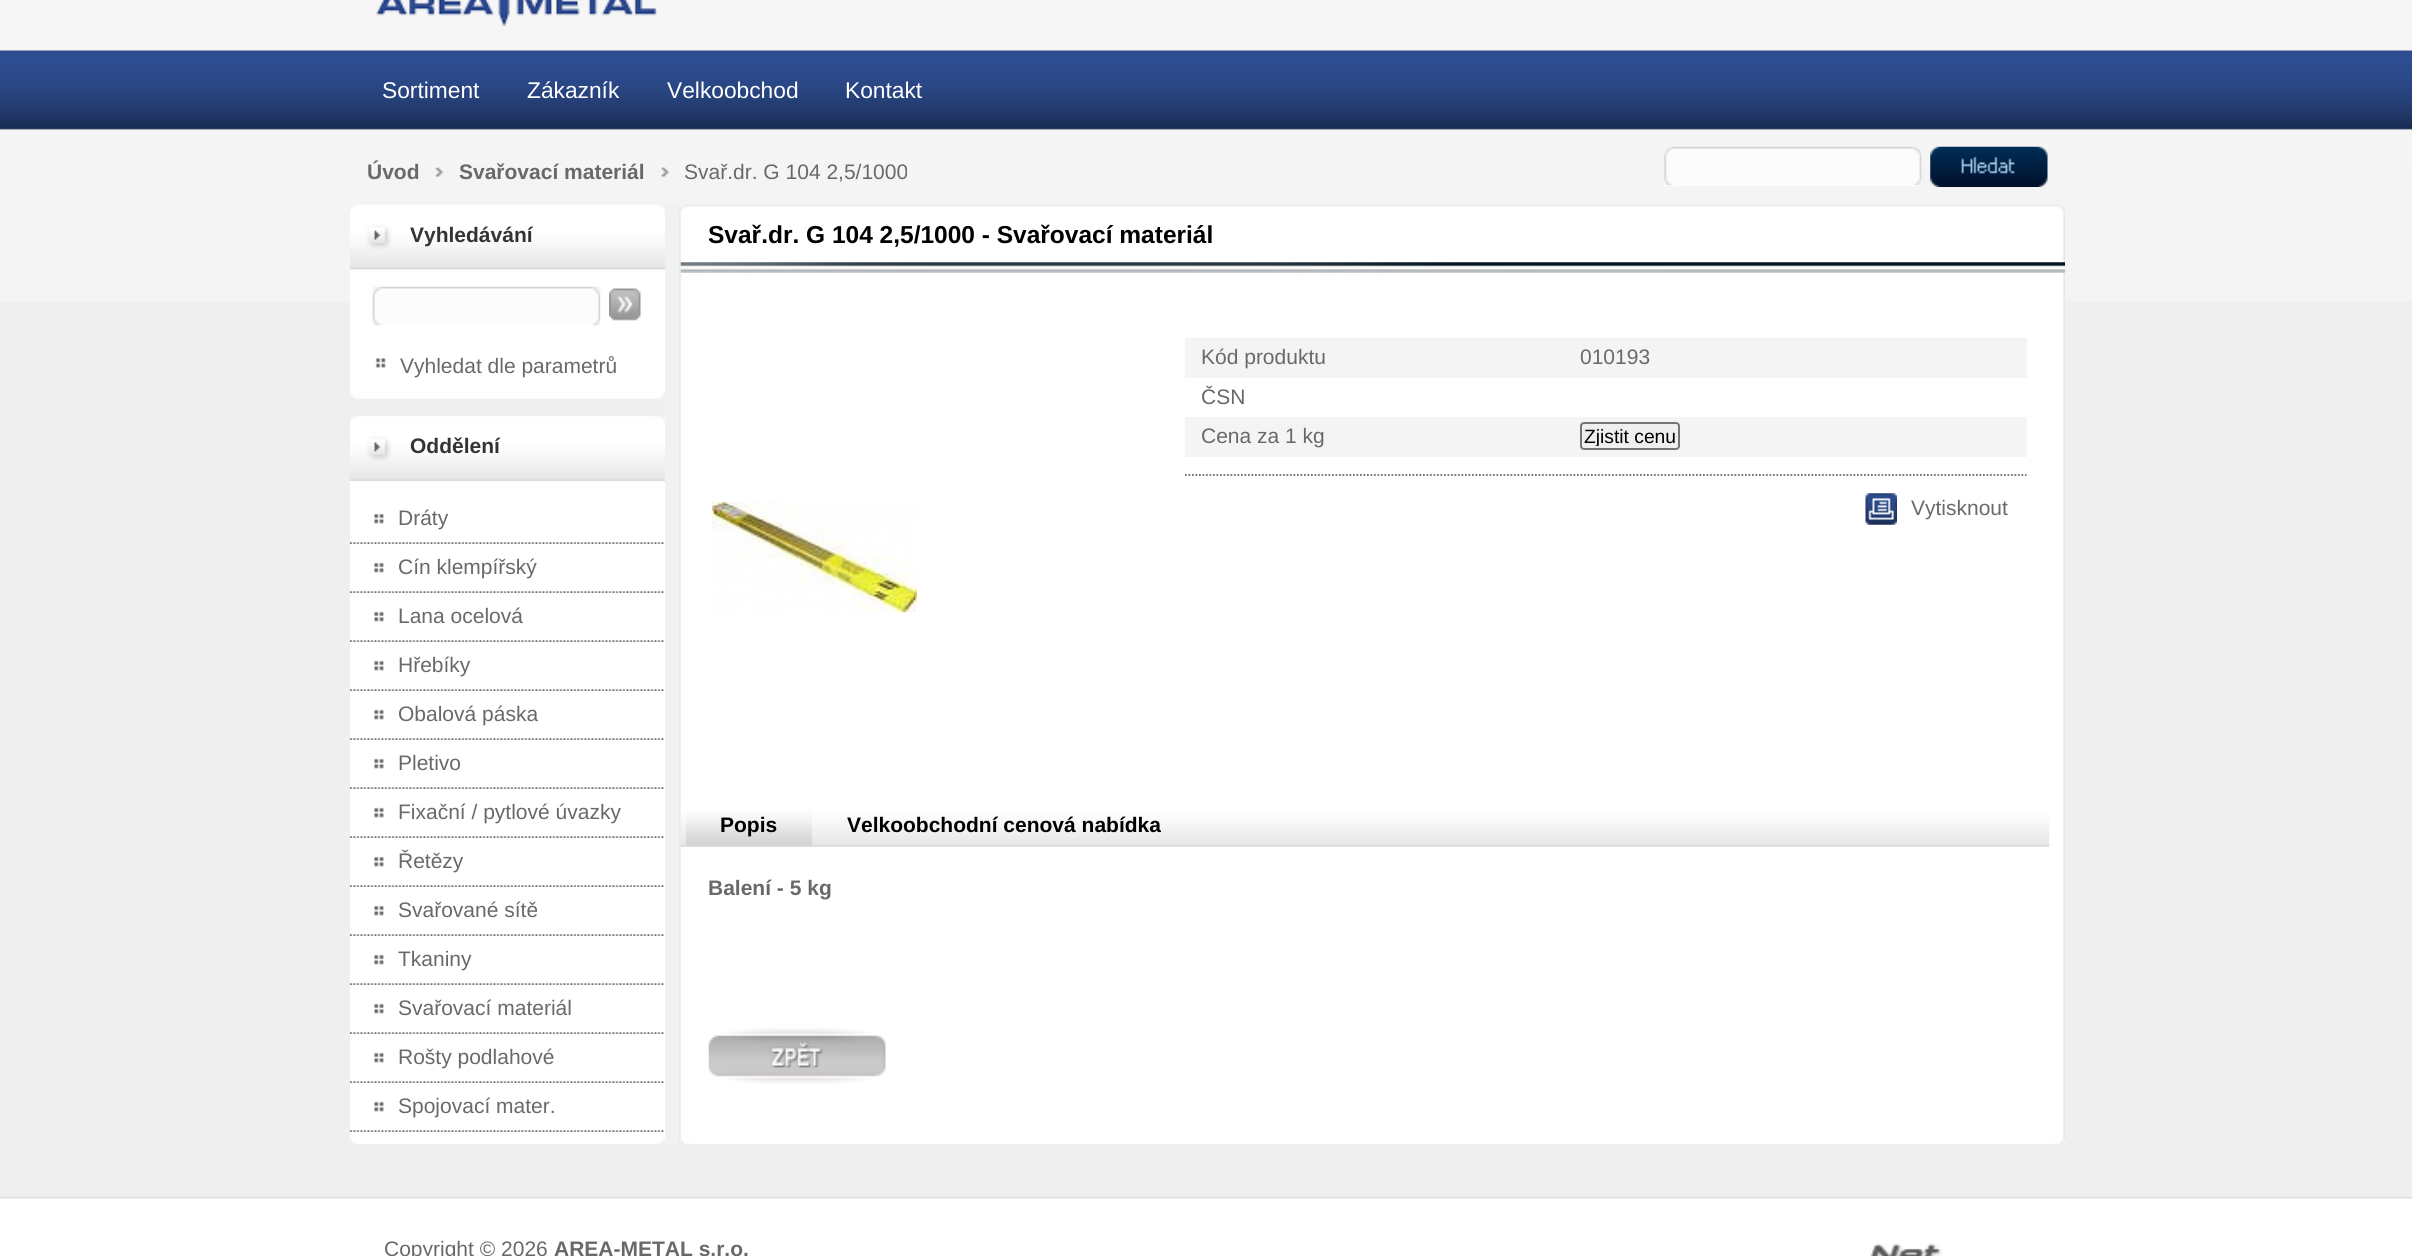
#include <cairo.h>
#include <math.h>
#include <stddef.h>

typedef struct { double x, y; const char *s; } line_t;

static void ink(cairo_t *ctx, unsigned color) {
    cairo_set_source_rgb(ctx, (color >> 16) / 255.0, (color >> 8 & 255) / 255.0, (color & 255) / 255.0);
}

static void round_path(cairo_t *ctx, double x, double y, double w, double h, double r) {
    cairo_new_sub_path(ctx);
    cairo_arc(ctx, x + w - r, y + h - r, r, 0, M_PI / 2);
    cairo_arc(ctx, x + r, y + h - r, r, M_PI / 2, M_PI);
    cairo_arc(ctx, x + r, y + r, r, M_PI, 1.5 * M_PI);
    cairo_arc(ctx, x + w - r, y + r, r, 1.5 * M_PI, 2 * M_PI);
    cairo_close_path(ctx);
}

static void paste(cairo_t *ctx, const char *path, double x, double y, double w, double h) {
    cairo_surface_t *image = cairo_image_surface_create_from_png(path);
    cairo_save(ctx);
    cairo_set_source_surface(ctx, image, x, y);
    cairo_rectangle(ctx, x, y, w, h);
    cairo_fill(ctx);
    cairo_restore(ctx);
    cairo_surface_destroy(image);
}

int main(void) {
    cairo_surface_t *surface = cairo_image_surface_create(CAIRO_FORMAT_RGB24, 2412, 1256);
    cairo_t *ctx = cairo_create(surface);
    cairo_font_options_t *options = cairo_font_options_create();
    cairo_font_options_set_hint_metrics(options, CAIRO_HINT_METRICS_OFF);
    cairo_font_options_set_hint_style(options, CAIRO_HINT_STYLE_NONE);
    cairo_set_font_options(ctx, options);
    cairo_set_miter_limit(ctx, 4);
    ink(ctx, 0xEFEFEF);
    cairo_paint(ctx);
    paste(ctx, "media/1.png", 0, 0, 2412, 301);
    paste(ctx, "media/2.png", 0, 1196, 2412, 60);
    paste(ctx, "media/3.png", 376, 0, 281, 26);
    cairo_select_font_face(ctx, "Liberation Sans", CAIRO_FONT_SLANT_NORMAL, CAIRO_FONT_WEIGHT_NORMAL);
    cairo_set_font_size(ctx, 22.75);
    ink(ctx, 0xFFFFFF);
    {
        static const line_t items[] = {
            {382, 98, "Sortiment"},
            {527, 98, "Zákazník"},
            {667, 98, "Velkoobchod"},
            {845, 98, "Kontakt"},
        };
        for (size_t i = 0; i < sizeof items / sizeof *items; i++) {
            cairo_move_to(ctx, items[i].x, items[i].y);
            cairo_show_text(ctx, items[i].s);
        }
    }
    cairo_select_font_face(ctx, "Liberation Sans", CAIRO_FONT_SLANT_NORMAL, CAIRO_FONT_WEIGHT_BOLD);
    cairo_set_font_size(ctx, 21);
    ink(ctx, 0x696969);
    cairo_move_to(ctx, 367, 179);
    cairo_show_text(ctx, "Úvod");
    paste(ctx, "media/4.png", 435, 167, 9, 10);
    cairo_move_to(ctx, 459, 179);
    cairo_show_text(ctx, "Svařovací materiál");
    paste(ctx, "media/5.png", 661, 167, 8, 10);
    cairo_select_font_face(ctx, "Liberation Sans", CAIRO_FONT_SLANT_NORMAL, CAIRO_FONT_WEIGHT_NORMAL);
    cairo_move_to(ctx, 684, 179);
    cairo_show_text(ctx, "Svař.dr. G 104 2,5/1000");
    ink(ctx, 0xFFFFFF);
    cairo_rectangle(ctx, 1664, 147, 258, 39);
    cairo_fill(ctx);
    paste(ctx, "media/6.png", 1664, 146, 258, 40);
    paste(ctx, "media/7.png", 1930, 146, 118, 41);
    paste(ctx, "media/8.png", 350, 204, 315, 66);
    cairo_select_font_face(ctx, "Liberation Sans", CAIRO_FONT_SLANT_NORMAL, CAIRO_FONT_WEIGHT_BOLD);
    ink(ctx, 0x333333);
    cairo_move_to(ctx, 410, 242);
    cairo_show_text(ctx, "Vyhledávání");
    ink(ctx, 0xFFFFFF);
    cairo_rectangle(ctx, 350, 270, 315, 120);
    cairo_fill(ctx);
    paste(ctx, "media/9.png", 372, 286, 229, 40);
    paste(ctx, "media/10.png", 609, 288, 32, 33);
    paste(ctx, "media/11.png", 375, 358, 11, 10);
    cairo_select_font_face(ctx, "Liberation Sans", CAIRO_FONT_SLANT_NORMAL, CAIRO_FONT_WEIGHT_NORMAL);
    ink(ctx, 0x696969);
    cairo_move_to(ctx, 400, 373);
    cairo_show_text(ctx, "Vyhledat dle parametrů");
    paste(ctx, "media/12.png", 350, 390, 315, 9);
    paste(ctx, "media/13.png", 350, 416, 315, 65);
    cairo_select_font_face(ctx, "Liberation Sans", CAIRO_FONT_SLANT_NORMAL, CAIRO_FONT_WEIGHT_BOLD);
    ink(ctx, 0x333333);
    cairo_move_to(ctx, 410, 453);
    cairo_show_text(ctx, "Oddělení");
    ink(ctx, 0xFFFFFF);
    cairo_rectangle(ctx, 350, 481, 315, 655);
    cairo_fill(ctx);
    paste(ctx, "media/14.png", 350, 542, 314, 2);
    paste(ctx, "media/15.png", 374, 513, 10, 11);
    cairo_select_font_face(ctx, "Liberation Sans", CAIRO_FONT_SLANT_NORMAL, CAIRO_FONT_WEIGHT_NORMAL);
    ink(ctx, 0x696969);
    cairo_move_to(ctx, 398, 525);
    cairo_show_text(ctx, "Dráty");
    paste(ctx, "media/14.png", 350, 591, 314, 2);
    paste(ctx, "media/15.png", 374, 562, 10, 11);
    cairo_move_to(ctx, 398, 574);
    cairo_show_text(ctx, "Cín klempířský");
    paste(ctx, "media/14.png", 350, 640, 314, 2);
    paste(ctx, "media/15.png", 374, 611, 10, 11);
    cairo_move_to(ctx, 398, 623);
    cairo_show_text(ctx, "Lana ocelová");
    paste(ctx, "media/14.png", 350, 689, 314, 2);
    paste(ctx, "media/15.png", 374, 660, 10, 11);
    cairo_move_to(ctx, 398, 672);
    cairo_show_text(ctx, "Hřebíky");
    paste(ctx, "media/14.png", 350, 738, 314, 2);
    paste(ctx, "media/15.png", 374, 709, 10, 11);
    cairo_move_to(ctx, 398, 721);
    cairo_show_text(ctx, "Obalová páska");
    paste(ctx, "media/14.png", 350, 787, 314, 2);
    paste(ctx, "media/15.png", 374, 758, 10, 11);
    cairo_move_to(ctx, 398, 770);
    cairo_show_text(ctx, "Pletivo");
    paste(ctx, "media/14.png", 350, 836, 314, 2);
    paste(ctx, "media/15.png", 374, 807, 10, 11);
    cairo_move_to(ctx, 398, 819);
    cairo_show_text(ctx, "Fixační / pytlové úvazky");
    paste(ctx, "media/14.png", 350, 885, 314, 2);
    paste(ctx, "media/15.png", 374, 856, 10, 11);
    cairo_move_to(ctx, 398, 868);
    cairo_show_text(ctx, "Řetězy");
    paste(ctx, "media/14.png", 350, 934, 314, 2);
    paste(ctx, "media/15.png", 374, 905, 10, 11);
    cairo_move_to(ctx, 398, 917);
    cairo_show_text(ctx, "Svařované sítě");
    paste(ctx, "media/14.png", 350, 983, 314, 2);
    paste(ctx, "media/15.png", 374, 954, 10, 11);
    cairo_move_to(ctx, 398, 966);
    cairo_show_text(ctx, "Tkaniny");
    paste(ctx, "media/14.png", 350, 1032, 314, 2);
    paste(ctx, "media/15.png", 374, 1003, 10, 11);
    cairo_move_to(ctx, 398, 1015);
    cairo_show_text(ctx, "Svařovací materiál");
    paste(ctx, "media/14.png", 350, 1081, 314, 2);
    paste(ctx, "media/15.png", 374, 1052, 10, 11);
    cairo_move_to(ctx, 398, 1064);
    cairo_show_text(ctx, "Rošty podlahové");
    paste(ctx, "media/14.png", 350, 1130, 314, 2);
    paste(ctx, "media/15.png", 374, 1101, 10, 11);
    cairo_move_to(ctx, 398, 1113);
    cairo_show_text(ctx, "Spojovací mater.");
    paste(ctx, "media/16.png", 350, 1136, 315, 9);
    paste(ctx, "media/17.png", 665, 204, 1400, 942);
    paste(ctx, "media/18.png", 679, 204, 1386, 7);
    ink(ctx, 0xF4F4F4);
    cairo_rectangle(ctx, 1185, 338, 842, 40);
    cairo_fill(ctx);
    ink(ctx, 0x696969);
    {
        static const line_t items[] = {
            {1201, 364, "Kód produktu"},
            {1580, 364, "010193"},
            {1201, 404, "ČSN"},
        };
        for (size_t i = 0; i < sizeof items / sizeof *items; i++) {
            cairo_move_to(ctx, items[i].x, items[i].y);
            cairo_show_text(ctx, items[i].s);
        }
    }
    ink(ctx, 0xF4F4F4);
    cairo_rectangle(ctx, 1185, 417, 842, 40);
    cairo_fill(ctx);
    ink(ctx, 0x696969);
    cairo_move_to(ctx, 1201, 443);
    cairo_show_text(ctx, "Cena za 1 kg");
    ink(ctx, 0xEFEFEF);
    round_path(ctx, 1581, 423, 98, 26, 3);
    cairo_fill_preserve(ctx);
    ink(ctx, 0x767676);
    cairo_stroke(ctx);
    cairo_save(ctx);
    cairo_rectangle(ctx, 1584, 425, 93, 21);
    cairo_clip(ctx);
    cairo_set_font_size(ctx, 19.25);
    ink(ctx, 0x000000);
    cairo_move_to(ctx, 1584, 443);
    cairo_show_text(ctx, "Zjistit cenu");
    cairo_restore(ctx);
    cairo_new_path(ctx);
    cairo_move_to(ctx, 1185, 475);
    cairo_line_to(ctx, 2026.5, 475);
    ink(ctx, 0x696969);
    cairo_set_line_width(ctx, 1.8);
    cairo_set_dash(ctx, (double[]){1.75, 1.75}, 2, 0);
    cairo_stroke(ctx);
    paste(ctx, "media/19.png", 1865, 493, 32, 32);
    cairo_move_to(ctx, 1911, 515);
    cairo_show_text(ctx, "Vytisknout");
    paste(ctx, "media/20.png", 712, 502, 205, 111);
    paste(ctx, "media/21.png", 680, 805, 1370, 42);
    paste(ctx, "media/22.png", 686, 805, 126, 42);
    cairo_select_font_face(ctx, "Liberation Sans", CAIRO_FONT_SLANT_NORMAL, CAIRO_FONT_WEIGHT_BOLD);
    ink(ctx, 0x000000);
    cairo_move_to(ctx, 720, 832);
    cairo_show_text(ctx, "Popis");
    cairo_move_to(ctx, 847, 832);
    cairo_show_text(ctx, "Velkoobchodní cenová nabídka");
    ink(ctx, 0x696969);
    cairo_move_to(ctx, 708, 895);
    cairo_show_text(ctx, "Balení - 5 kg");
    paste(ctx, "media/23.png", 708, 1028, 178, 56);
    paste(ctx, "media/24.png", 679, 1139, 1386, 7);
    cairo_select_font_face(ctx, "Liberation Sans", CAIRO_FONT_SLANT_NORMAL, CAIRO_FONT_WEIGHT_NORMAL);
    cairo_move_to(ctx, 384, 1256);
    cairo_show_text(ctx, "Copyright © 2026");
    cairo_select_font_face(ctx, "Liberation Sans", CAIRO_FONT_SLANT_NORMAL, CAIRO_FONT_WEIGHT_BOLD);
    cairo_move_to(ctx, 554, 1256);
    cairo_show_text(ctx, "AREA-METAL s.r.o.");
    paste(ctx, "media/25.png", 1870, 1243, 73, 13);
    paste(ctx, "media/26.png", 680, 262, 1385, 11);
    cairo_set_font_size(ctx, 24.5);
    ink(ctx, 0x000000);
    cairo_move_to(ctx, 708, 243);
    cairo_show_text(ctx, "Svař.dr. G 104 2,5/1000 - Svařovací materiál");
    cairo_surface_write_to_png(surface, "image.png");
    cairo_font_options_destroy(options);
    cairo_destroy(ctx);
    cairo_surface_destroy(surface);
    return 0;
}
